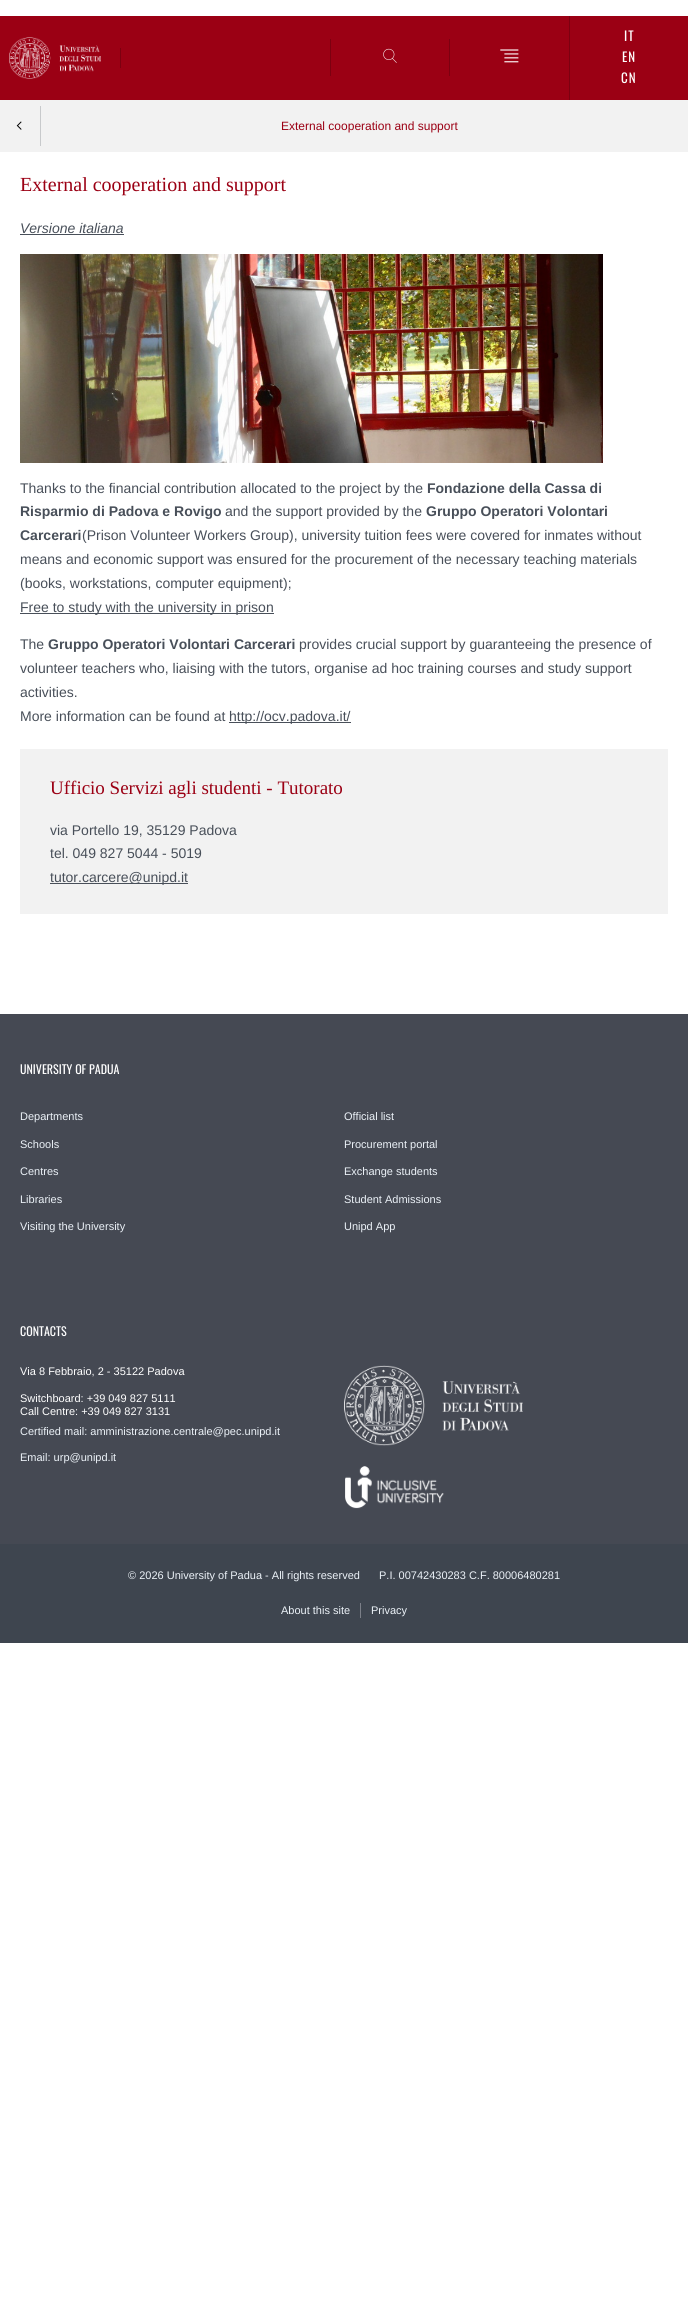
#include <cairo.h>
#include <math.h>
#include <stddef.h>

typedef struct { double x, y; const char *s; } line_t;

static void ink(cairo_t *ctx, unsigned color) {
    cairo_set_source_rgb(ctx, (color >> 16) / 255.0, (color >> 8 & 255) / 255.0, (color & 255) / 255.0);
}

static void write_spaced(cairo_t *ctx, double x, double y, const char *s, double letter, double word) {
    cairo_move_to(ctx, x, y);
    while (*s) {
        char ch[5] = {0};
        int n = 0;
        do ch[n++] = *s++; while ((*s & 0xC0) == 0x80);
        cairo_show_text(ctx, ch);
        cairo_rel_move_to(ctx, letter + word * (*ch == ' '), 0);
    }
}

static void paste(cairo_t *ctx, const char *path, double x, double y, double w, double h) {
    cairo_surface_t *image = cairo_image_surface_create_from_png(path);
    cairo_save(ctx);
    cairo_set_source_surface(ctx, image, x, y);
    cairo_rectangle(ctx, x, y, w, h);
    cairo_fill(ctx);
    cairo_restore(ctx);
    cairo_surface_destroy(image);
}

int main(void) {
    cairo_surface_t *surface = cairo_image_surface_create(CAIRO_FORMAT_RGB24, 688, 2304);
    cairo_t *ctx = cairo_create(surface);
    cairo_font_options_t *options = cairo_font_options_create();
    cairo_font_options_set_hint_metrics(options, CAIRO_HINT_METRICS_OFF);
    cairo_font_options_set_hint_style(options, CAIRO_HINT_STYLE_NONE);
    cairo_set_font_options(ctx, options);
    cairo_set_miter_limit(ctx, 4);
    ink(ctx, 0xFFFFFF);
    cairo_paint(ctx);
    ink(ctx, 0x9B0014);
    cairo_rectangle(ctx, 0, 16, 688, 84);
    cairo_fill(ctx);
    paste(ctx, "media/1.png", 9, 37, 92, 42);
    ink(ctx, 0x7C0010);
    cairo_rectangle(ctx, 120, 48, 1, 20);
    cairo_fill(ctx);
    cairo_rectangle(ctx, 330, 39, 1, 37);
    cairo_fill(ctx);
    paste(ctx, "media/2.png", 383, 48, 14, 15);
    cairo_rectangle(ctx, 449, 39, 1, 37);
    cairo_fill(ctx);
    paste(ctx, "media/3.png", 500, 49, 19, 14);
    cairo_rectangle(ctx, 569, 16, 1, 84);
    cairo_fill(ctx);
    cairo_select_font_face(ctx, "Oswald", CAIRO_FONT_SLANT_NORMAL, CAIRO_FONT_WEIGHT_NORMAL);
    cairo_set_font_size(ctx, 13);
    ink(ctx, 0xFFFFFF);
    {
        static const line_t items[] = {
            {624, 41, "IT"},
            {622, 62, "EN"},
            {621, 83, "CN"},
        };
        for (size_t i = 0; i < sizeof items / sizeof *items; i++) {
            write_spaced(ctx, items[i].x, items[i].y, items[i].s, 1, 0);
        }
    }
    ink(ctx, 0xF2F2F2);
    cairo_rectangle(ctx, 0, 100, 688, 52);
    cairo_fill(ctx);
    ink(ctx, 0xC8CACC);
    cairo_rectangle(ctx, 40, 106, 1, 40);
    cairo_fill(ctx);
    paste(ctx, "media/4.png", 16, 121, 6, 9);
    cairo_select_font_face(ctx, "Liberation Sans", CAIRO_FONT_SLANT_NORMAL, CAIRO_FONT_WEIGHT_NORMAL);
    cairo_set_font_size(ctx, 12);
    ink(ctx, 0x9B0014);
    cairo_move_to(ctx, 281, 130);
    cairo_show_text(ctx, "External cooperation and support");
    cairo_select_font_face(ctx, "Liberation Serif", CAIRO_FONT_SLANT_NORMAL, CAIRO_FONT_WEIGHT_NORMAL);
    cairo_set_font_size(ctx, 20);
    cairo_move_to(ctx, 20, 191);
    cairo_show_text(ctx, "External cooperation and support");
    cairo_select_font_face(ctx, "Liberation Sans", CAIRO_FONT_SLANT_ITALIC, CAIRO_FONT_WEIGHT_NORMAL);
    cairo_set_font_size(ctx, 14);
    ink(ctx, 0x484F59);
    cairo_move_to(ctx, 20, 233);
    cairo_show_text(ctx, "Versione italiana");
    cairo_rectangle(ctx, 20, 234, 104, 1);
    cairo_fill(ctx);
    paste(ctx, "media/5.png", 20, 254, 583, 209);
    cairo_select_font_face(ctx, "Liberation Sans", CAIRO_FONT_SLANT_NORMAL, CAIRO_FONT_WEIGHT_NORMAL);
    cairo_move_to(ctx, 20, 493);
    cairo_show_text(ctx, "Thanks to the financial contribution allocated to the project by the");
    cairo_select_font_face(ctx, "Liberation Sans", CAIRO_FONT_SLANT_NORMAL, CAIRO_FONT_WEIGHT_BOLD);
    cairo_move_to(ctx, 427, 493);
    cairo_show_text(ctx, "Fondazione della Cassa di");
    cairo_move_to(ctx, 20, 516);
    cairo_show_text(ctx, "Risparmio di Padova e Rovigo");
    cairo_select_font_face(ctx, "Liberation Sans", CAIRO_FONT_SLANT_NORMAL, CAIRO_FONT_WEIGHT_NORMAL);
    cairo_move_to(ctx, 225, 516);
    cairo_show_text(ctx, "and the support provided by the");
    cairo_select_font_face(ctx, "Liberation Sans", CAIRO_FONT_SLANT_NORMAL, CAIRO_FONT_WEIGHT_BOLD);
    cairo_move_to(ctx, 426, 516);
    cairo_show_text(ctx, "Gruppo Operatori Volontari");
    cairo_move_to(ctx, 20, 540);
    cairo_show_text(ctx, "Carcerari");
    cairo_select_font_face(ctx, "Liberation Sans", CAIRO_FONT_SLANT_NORMAL, CAIRO_FONT_WEIGHT_NORMAL);
    {
        static const line_t items[] = {
            {82, 540, "(Prison Volunteer Workers Group), university tuition fees were covered for inmates without"},
            {20, 564, "means and economic support was ensured for the procurement of the necessary teaching materials"},
            {20, 588, "(books, workstations, computer equipment);"},
        };
        for (size_t i = 0; i < sizeof items / sizeof *items; i++) {
            cairo_move_to(ctx, items[i].x, items[i].y);
            cairo_show_text(ctx, items[i].s);
        }
    }
    cairo_rectangle(ctx, 20, 613, 254, 1);
    cairo_fill(ctx);
    cairo_move_to(ctx, 20, 612);
    cairo_show_text(ctx, "Free to study with the university in prison");
    cairo_move_to(ctx, 20, 649);
    cairo_show_text(ctx, "The");
    cairo_select_font_face(ctx, "Liberation Sans", CAIRO_FONT_SLANT_NORMAL, CAIRO_FONT_WEIGHT_BOLD);
    cairo_move_to(ctx, 48, 649);
    cairo_show_text(ctx, "Gruppo Operatori Volontari Carcerari");
    cairo_select_font_face(ctx, "Liberation Sans", CAIRO_FONT_SLANT_NORMAL, CAIRO_FONT_WEIGHT_NORMAL);
    {
        static const line_t items[] = {
            {299, 649, "provides crucial support by guaranteeing the presence of"},
            {20, 673, "volunteer teachers who, liaising with the tutors, organise ad hoc training courses and study support"},
            {20, 697, "activities."},
            {20, 721, "More information can be found at"},
        };
        for (size_t i = 0; i < sizeof items / sizeof *items; i++) {
            cairo_move_to(ctx, items[i].x, items[i].y);
            cairo_show_text(ctx, items[i].s);
        }
    }
    cairo_rectangle(ctx, 229, 722, 122, 1);
    cairo_fill(ctx);
    cairo_move_to(ctx, 229, 721);
    cairo_show_text(ctx, "http://ocv.padova.it/");
    ink(ctx, 0xF2F2F2);
    cairo_rectangle(ctx, 20, 749, 648, 165);
    cairo_fill(ctx);
    cairo_select_font_face(ctx, "Liberation Serif", CAIRO_FONT_SLANT_NORMAL, CAIRO_FONT_WEIGHT_NORMAL);
    cairo_set_font_size(ctx, 19);
    ink(ctx, 0x9B0014);
    cairo_move_to(ctx, 50, 794);
    cairo_show_text(ctx, "Ufficio Servizi agli studenti - Tutorato");
    cairo_select_font_face(ctx, "Liberation Sans", CAIRO_FONT_SLANT_NORMAL, CAIRO_FONT_WEIGHT_NORMAL);
    cairo_set_font_size(ctx, 14);
    ink(ctx, 0x484F59);
    cairo_move_to(ctx, 50, 835);
    cairo_show_text(ctx, "via Portello 19, 35129 Padova");
    cairo_move_to(ctx, 50, 858);
    cairo_show_text(ctx, "tel. 049 827 5044 - 5019");
    cairo_rectangle(ctx, 50, 883, 138, 1);
    cairo_fill(ctx);
    cairo_move_to(ctx, 50, 882);
    cairo_show_text(ctx, "tutor.carcere@unipd.it");
    ink(ctx, 0x454953);
    cairo_rectangle(ctx, 0, 1014, 688, 530);
    cairo_fill(ctx);
    cairo_select_font_face(ctx, "Oswald", CAIRO_FONT_SLANT_NORMAL, CAIRO_FONT_WEIGHT_NORMAL);
    cairo_set_font_size(ctx, 12);
    ink(ctx, 0xFFFFFF);
    cairo_move_to(ctx, 20, 1074);
    cairo_show_text(ctx, "UNIVERSITY OF PADUA");
    cairo_select_font_face(ctx, "Liberation Sans", CAIRO_FONT_SLANT_NORMAL, CAIRO_FONT_WEIGHT_NORMAL);
    cairo_set_font_size(ctx, 11);
    ink(ctx, 0xECF2F8);
    {
        static const line_t items[] = {
            {20, 1120, "Departments"},
            {20, 1148, "Schools"},
            {20, 1175, "Centres"},
            {20, 1203, "Libraries"},
            {20, 1230, "Visiting the University"},
            {344, 1120, "Official list"},
            {344, 1148, "Procurement portal"},
            {344, 1175, "Exchange students"},
            {344, 1203, "Student Admissions"},
            {344, 1230, "Unipd App"},
        };
        for (size_t i = 0; i < sizeof items / sizeof *items; i++) {
            cairo_move_to(ctx, items[i].x, items[i].y);
            cairo_show_text(ctx, items[i].s);
        }
    }
    cairo_select_font_face(ctx, "Oswald", CAIRO_FONT_SLANT_NORMAL, CAIRO_FONT_WEIGHT_NORMAL);
    cairo_set_font_size(ctx, 12);
    ink(ctx, 0xFFFFFF);
    cairo_move_to(ctx, 20, 1336);
    cairo_show_text(ctx, "CONTACTS");
    cairo_select_font_face(ctx, "Liberation Sans", CAIRO_FONT_SLANT_NORMAL, CAIRO_FONT_WEIGHT_NORMAL);
    cairo_set_font_size(ctx, 11);
    {
        static const line_t items[] = {
            {20, 1375, "Via 8 Febbraio, 2 - 35122 Padova"},
            {20, 1402, "Switchboard: +39 049 827 5111"},
            {20, 1415, "Call Centre: +39 049 827 3131"},
        };
        for (size_t i = 0; i < sizeof items / sizeof *items; i++) {
            cairo_move_to(ctx, items[i].x, items[i].y);
            cairo_show_text(ctx, items[i].s);
        }
    }
    ink(ctx, 0xECF2F8);
    cairo_move_to(ctx, 20, 1435);
    cairo_show_text(ctx, "Certified mail: amministrazione.centrale@pec.unipd.it");
    cairo_move_to(ctx, 20, 1461);
    cairo_show_text(ctx, "Email: urp@unipd.it");
    paste(ctx, "media/6.png", 344, 1365, 179, 81);
    paste(ctx, "media/7.png", 345, 1466, 99, 43);
    ink(ctx, 0x3E454F);
    cairo_rectangle(ctx, 0, 1544, 688, 99);
    cairo_fill(ctx);
    ink(ctx, 0xECF2F8);
    {
        static const line_t items[] = {
            {128, 1579, "© 2026 University of Padua - All rights reserved"},
            {379, 1579, "P.I. 00742430283 C.F. 80006480281"},
            {281, 1614, "About this site"},
        };
        for (size_t i = 0; i < sizeof items / sizeof *items; i++) {
            cairo_move_to(ctx, items[i].x, items[i].y);
            cairo_show_text(ctx, items[i].s);
        }
    }
    ink(ctx, 0x7B7F88);
    cairo_rectangle(ctx, 360, 1603, 1, 15);
    cairo_fill(ctx);
    ink(ctx, 0xECF2F8);
    cairo_move_to(ctx, 371, 1614);
    cairo_show_text(ctx, "Privacy");
    cairo_surface_write_to_png(surface, "image.png");
    cairo_font_options_destroy(options);
    cairo_destroy(ctx);
    cairo_surface_destroy(surface);
    return 0;
}
